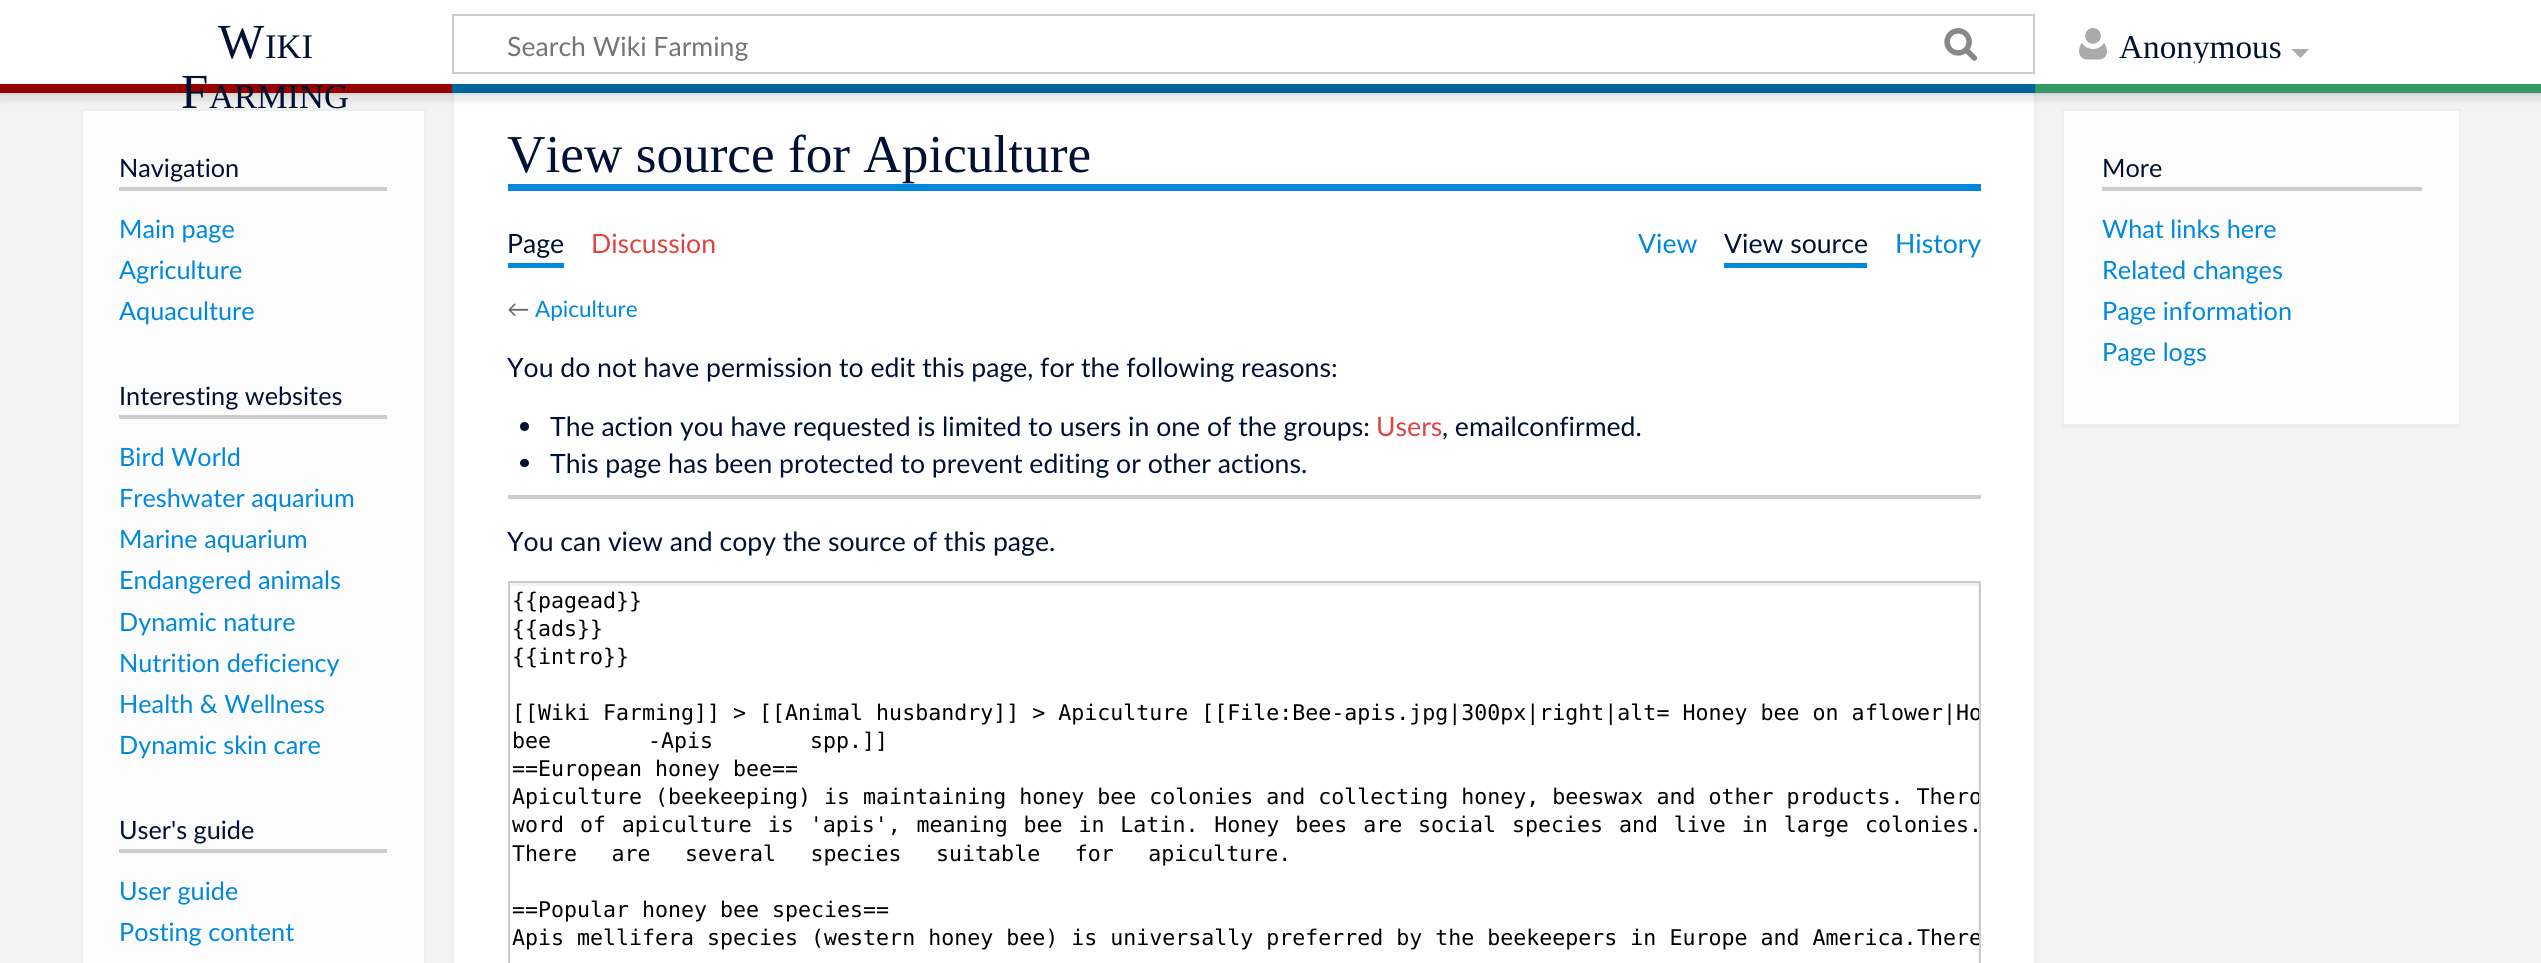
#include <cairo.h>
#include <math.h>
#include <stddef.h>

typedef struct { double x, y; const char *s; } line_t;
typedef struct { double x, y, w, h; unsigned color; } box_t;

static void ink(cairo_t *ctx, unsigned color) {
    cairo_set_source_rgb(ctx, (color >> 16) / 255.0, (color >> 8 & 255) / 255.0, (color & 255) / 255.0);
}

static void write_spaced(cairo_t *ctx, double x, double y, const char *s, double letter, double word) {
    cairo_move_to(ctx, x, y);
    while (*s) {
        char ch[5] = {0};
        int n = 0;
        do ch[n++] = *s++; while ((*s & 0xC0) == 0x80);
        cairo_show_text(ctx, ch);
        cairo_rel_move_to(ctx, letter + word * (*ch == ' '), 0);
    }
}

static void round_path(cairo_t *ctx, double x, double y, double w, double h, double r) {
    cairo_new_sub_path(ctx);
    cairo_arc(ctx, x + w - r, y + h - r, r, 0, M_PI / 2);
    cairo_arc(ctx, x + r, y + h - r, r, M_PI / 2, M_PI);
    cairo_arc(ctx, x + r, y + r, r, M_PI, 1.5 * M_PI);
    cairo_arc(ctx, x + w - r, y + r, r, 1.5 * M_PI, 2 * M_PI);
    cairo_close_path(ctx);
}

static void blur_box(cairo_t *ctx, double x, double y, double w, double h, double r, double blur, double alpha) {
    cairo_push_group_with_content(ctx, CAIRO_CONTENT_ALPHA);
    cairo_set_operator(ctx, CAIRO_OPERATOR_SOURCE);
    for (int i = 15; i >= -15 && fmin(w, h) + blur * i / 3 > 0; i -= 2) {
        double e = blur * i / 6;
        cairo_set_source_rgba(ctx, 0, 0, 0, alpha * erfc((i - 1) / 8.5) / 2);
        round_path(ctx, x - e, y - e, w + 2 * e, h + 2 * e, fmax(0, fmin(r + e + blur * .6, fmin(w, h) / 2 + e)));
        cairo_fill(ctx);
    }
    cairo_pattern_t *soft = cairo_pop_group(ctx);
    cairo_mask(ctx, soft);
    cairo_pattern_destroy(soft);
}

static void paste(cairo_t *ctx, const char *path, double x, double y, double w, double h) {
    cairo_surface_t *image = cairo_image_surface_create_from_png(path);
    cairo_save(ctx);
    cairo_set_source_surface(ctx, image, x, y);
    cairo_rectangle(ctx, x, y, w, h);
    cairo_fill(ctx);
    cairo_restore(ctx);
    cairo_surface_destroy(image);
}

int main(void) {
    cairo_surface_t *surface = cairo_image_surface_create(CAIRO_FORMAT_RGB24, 2541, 963);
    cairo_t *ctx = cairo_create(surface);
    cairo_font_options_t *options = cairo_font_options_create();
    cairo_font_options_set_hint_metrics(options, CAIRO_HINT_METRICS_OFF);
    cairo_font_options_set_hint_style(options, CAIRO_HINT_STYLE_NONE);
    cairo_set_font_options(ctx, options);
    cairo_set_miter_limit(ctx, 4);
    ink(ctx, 0xF3F3F3);
    cairo_paint(ctx);
    {
        static const box_t items[] = {
            {454, 93, 1580, 870, 0xFFFFFF},
            {2034, 93, 2, 870, 0xEEEEEE},
            {452, 93, 2, 870, 0xEEEEEE},
        };
        for (size_t i = 0; i < sizeof items / sizeof *items; i++) {
            ink(ctx, items[i].color);
            cairo_rectangle(ctx, items[i].x, items[i].y, items[i].w, items[i].h);
            cairo_fill(ctx);
        }
    }
    ink(ctx, 0x000000);
    blur_box(ctx, 0, 84, 2541, 9, 0, 2, 0.2);
    {
        static const box_t items[] = {
            {81, 109, 344, 2, 0xEEEEEE},
            {424, 109, 2, 854, 0xEEEEEE},
            {81, 109, 2, 854, 0xEEEEEE},
            {2062, 109, 399, 2, 0xEEEEEE},
            {2459, 109, 2, 318, 0xEEEEEE},
            {2062, 424, 399, 4, 0xEEEEEE},
            {2062, 109, 2, 318, 0xEEEEEE},
        };
        for (size_t i = 0; i < sizeof items / sizeof *items; i++) {
            ink(ctx, items[i].color);
            cairo_rectangle(ctx, items[i].x, items[i].y, items[i].w, items[i].h);
            cairo_fill(ctx);
        }
    }
    ink(ctx, 0x000000);
    blur_box(ctx, -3, 86, 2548, 16, 0, 2.5, 0.07);
    ink(ctx, 0xFFFFFF);
    cairo_rectangle(ctx, 0, 0, 2541, 84);
    cairo_fill(ctx);
    cairo_select_font_face(ctx, "Liberation Serif", CAIRO_FONT_SLANT_NORMAL, CAIRO_FONT_WEIGHT_NORMAL);
    cairo_set_font_size(ctx, 49);
    ink(ctx, 0x001133);
    cairo_move_to(ctx, 218, 58);
    cairo_show_text(ctx, "W");
    cairo_set_font_size(ctx, 34.5);
    cairo_move_to(ctx, 265, 58);
    cairo_show_text(ctx, "IKI");
    ink(ctx, 0x990000);
    cairo_rectangle(ctx, 0, 84, 452, 9);
    cairo_fill(ctx);
    cairo_set_font_size(ctx, 49);
    ink(ctx, 0x001133);
    cairo_move_to(ctx, 181, 108);
    cairo_show_text(ctx, "F");
    cairo_set_font_size(ctx, 34.5);
    cairo_move_to(ctx, 209, 108);
    cairo_show_text(ctx, "ARMING");
    cairo_rectangle(ctx, 453, 15, 1581, 58);
    ink(ctx, 0xCCCCCC);
    cairo_stroke(ctx);
    cairo_select_font_face(ctx, "Lato", CAIRO_FONT_SLANT_NORMAL, CAIRO_FONT_WEIGHT_NORMAL);
    cairo_set_font_size(ctx, 26.6);
    ink(ctx, 0x757575);
    cairo_move_to(ctx, 507, 56);
    cairo_show_text(ctx, "Search Wiki Farming");
    paste(ctx, "media/1.png", 1944, 28, 34, 33);
    paste(ctx, "media/2.png", 2079, 28, 28, 32);
    cairo_save(ctx);
    cairo_rectangle(ctx, 2119, 30, 163, 33);
    cairo_clip(ctx);
    cairo_select_font_face(ctx, "Liberation Serif", CAIRO_FONT_SLANT_NORMAL, CAIRO_FONT_WEIGHT_NORMAL);
    cairo_set_font_size(ctx, 33.25);
    ink(ctx, 0x001133);
    cairo_move_to(ctx, 2119, 58);
    cairo_show_text(ctx, "Anonymous");
    cairo_restore(ctx);
    ink(ctx, 0xAAAAAA);
    cairo_new_path(ctx);
    cairo_move_to(ctx, 2309, 49);
    cairo_line_to(ctx, 2300.5, 58);
    cairo_line_to(ctx, 2291.5, 49);
    cairo_close_path(ctx);
    cairo_fill(ctx);
    {
        static const box_t items[] = {
            {452, 84, 1583, 9, 0x006699},
            {2035, 84, 506, 9, 0x339966},
            {83, 111, 341, 852, 0xFCFCFC},
            {119, 187, 268, 4, 0xCCCCCC},
        };
        for (size_t i = 0; i < sizeof items / sizeof *items; i++) {
            ink(ctx, items[i].color);
            cairo_rectangle(ctx, items[i].x, items[i].y, items[i].w, items[i].h);
            cairo_fill(ctx);
        }
    }
    cairo_set_font_size(ctx, 25.25);
    ink(ctx, 0x001133);
    cairo_move_to(ctx, 119, 177);
    cairo_show_text(ctx, "Navigation");
    ink(ctx, 0x0088DD);
    {
        static const line_t items[] = {
            {119, 238, "Main page"},
            {119, 279, "Agriculture"},
            {119, 320, "Aquaculture"},
        };
        for (size_t i = 0; i < sizeof items / sizeof *items; i++) {
            cairo_move_to(ctx, items[i].x, items[i].y);
            cairo_show_text(ctx, items[i].s);
        }
    }
    ink(ctx, 0xCCCCCC);
    cairo_rectangle(ctx, 119, 415, 268, 4);
    cairo_fill(ctx);
    ink(ctx, 0x001133);
    cairo_move_to(ctx, 119, 405);
    cairo_show_text(ctx, "Interesting websites");
    ink(ctx, 0x0088DD);
    {
        static const line_t items[] = {
            {119, 466, "Bird World"},
            {119, 507, "Freshwater aquarium"},
            {119, 548, "Marine aquarium"},
            {119, 589, "Endangered animals"},
            {119, 631, "Dynamic nature"},
            {119, 672, "Nutrition deficiency"},
            {119, 713, "Health & Wellness"},
            {119, 754, "Dynamic skin care"},
        };
        for (size_t i = 0; i < sizeof items / sizeof *items; i++) {
            cairo_move_to(ctx, items[i].x, items[i].y);
            cairo_show_text(ctx, items[i].s);
        }
    }
    ink(ctx, 0xCCCCCC);
    cairo_rectangle(ctx, 119, 849, 268, 4);
    cairo_fill(ctx);
    ink(ctx, 0x001133);
    cairo_move_to(ctx, 119, 839);
    cairo_show_text(ctx, "User's guide");
    ink(ctx, 0x0088DD);
    cairo_move_to(ctx, 119, 900);
    cairo_show_text(ctx, "User guide");
    cairo_move_to(ctx, 119, 941);
    cairo_show_text(ctx, "Posting content");
    cairo_rectangle(ctx, 508, 184, 1473, 7);
    cairo_fill(ctx);
    cairo_select_font_face(ctx, "Liberation Serif", CAIRO_FONT_SLANT_NORMAL, CAIRO_FONT_WEIGHT_NORMAL);
    cairo_set_font_size(ctx, 53.25);
    ink(ctx, 0x001133);
    cairo_move_to(ctx, 507, 172);
    cairo_show_text(ctx, "View source for Apiculture");
    ink(ctx, 0x0088DD);
    cairo_rectangle(ctx, 508, 263, 56, 5);
    cairo_fill(ctx);
    cairo_select_font_face(ctx, "Lato", CAIRO_FONT_SLANT_NORMAL, CAIRO_FONT_WEIGHT_NORMAL);
    cairo_set_font_size(ctx, 26.6);
    ink(ctx, 0x001133);
    cairo_move_to(ctx, 507, 253);
    cairo_show_text(ctx, "Page");
    ink(ctx, 0xDD4444);
    cairo_move_to(ctx, 591, 253);
    cairo_show_text(ctx, "Discussion");
    ink(ctx, 0x0088DD);
    cairo_move_to(ctx, 1638, 253);
    cairo_show_text(ctx, "View");
    cairo_rectangle(ctx, 1724, 263, 143, 5);
    cairo_fill(ctx);
    ink(ctx, 0x001133);
    cairo_move_to(ctx, 1724, 253);
    cairo_show_text(ctx, "View source");
    ink(ctx, 0x0088DD);
    cairo_move_to(ctx, 1895, 253);
    cairo_show_text(ctx, "History");
    cairo_set_font_size(ctx, 22.5);
    ink(ctx, 0x666666);
    cairo_move_to(ctx, 507, 317);
    cairo_show_text(ctx, "←");
    ink(ctx, 0x0088DD);
    cairo_move_to(ctx, 535, 317);
    cairo_show_text(ctx, "Apiculture");
    cairo_set_font_size(ctx, 26.6);
    ink(ctx, 0x001133);
    cairo_move_to(ctx, 507, 377);
    cairo_show_text(ctx, "You do not have permission to edit this page, for the following reasons:");
    cairo_new_path(ctx);
    cairo_arc(ctx, 524.5, 426.5, 4.5, 0, 2 * M_PI);
    cairo_fill(ctx);
    cairo_move_to(ctx, 550, 436);
    cairo_show_text(ctx, "The action you have requested is limited to users in one of the groups:");
    ink(ctx, 0xDD4444);
    cairo_move_to(ctx, 1376, 436);
    cairo_show_text(ctx, "Users");
    ink(ctx, 0x001133);
    cairo_move_to(ctx, 1442, 436);
    cairo_show_text(ctx, ", emailconfirmed.");
    round_path(ctx, 520, 459, 9, 8, 4);
    cairo_fill(ctx);
    cairo_move_to(ctx, 550, 473);
    cairo_show_text(ctx, "This page has been protected to prevent editing or other actions.");
    ink(ctx, 0xCCCCCC);
    cairo_rectangle(ctx, 508, 495, 1473, 4);
    cairo_fill(ctx);
    ink(ctx, 0x001133);
    cairo_move_to(ctx, 507, 551);
    cairo_show_text(ctx, "You can view and copy the source of this page.");
    cairo_save(ctx);
    cairo_rectangle(ctx, 509, 583, 1470, 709);
    cairo_clip(ctx);
    ink(ctx, 0xF2F2F2);
    cairo_set_fill_rule(ctx, CAIRO_FILL_RULE_EVEN_ODD);
    cairo_new_path(ctx);
    cairo_move_to(ctx, 336, 410);
    cairo_line_to(ctx, 2152, 410);
    cairo_line_to(ctx, 2152, 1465);
    cairo_line_to(ctx, 336, 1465);
    cairo_close_path(ctx);
    cairo_move_to(ctx, 511, 586);
    cairo_line_to(ctx, 1978, 586);
    cairo_line_to(ctx, 1978, 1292);
    cairo_line_to(ctx, 511, 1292);
    cairo_close_path(ctx);
    cairo_fill(ctx);
    cairo_restore(ctx);
    cairo_rectangle(ctx, 509, 582, 1471, 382);
    ink(ctx, 0xCCCCCC);
    cairo_stroke(ctx);
    cairo_select_font_face(ctx, "DejaVu Sans Mono", CAIRO_FONT_SLANT_NORMAL, CAIRO_FONT_WEIGHT_NORMAL);
    cairo_set_font_size(ctx, 21.6);
    ink(ctx, 0x000000);
    {
        static const line_t items[] = {
            {512, 608, "{{pagead}}"},
            {512, 636, "{{ads}}"},
            {512, 664, "{{intro}}"},
            {512, 720, "[[Wiki Farming]] > [[Animal husbandry]] > Apiculture [[File:Bee-apis.jpg|300px|right|alt= Honey bee on a"},
        };
        for (size_t i = 0; i < sizeof items / sizeof *items; i++) {
            cairo_move_to(ctx, items[i].x, items[i].y);
            cairo_show_text(ctx, items[i].s);
        }
    }
    cairo_save(ctx);
    cairo_rectangle(ctx, 509, 583, 1470, 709);
    cairo_clip(ctx);
    cairo_move_to(ctx, 1865, 720);
    cairo_show_text(ctx, "flower|Ho");
    cairo_restore(ctx);
    write_spaced(ctx, 512, 748, "bee -Apis spp.]]", 0, 84);
    cairo_move_to(ctx, 512, 776);
    cairo_show_text(ctx, "==European honey bee==");
    cairo_move_to(ctx, 512, 804);
    cairo_show_text(ctx, "Apiculture (beekeeping) is maintaining honey bee colonies and collecting honey, beeswax and other products. The");
    cairo_save(ctx);
    cairo_rectangle(ctx, 509, 583, 1470, 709);
    cairo_clip(ctx);
    cairo_move_to(ctx, 1956, 804);
    cairo_show_text(ctx, "ro");
    cairo_restore(ctx);
    write_spaced(ctx, 512, 832, "word of apiculture is 'apis', meaning bee in Latin. Honey bees are social species and live in large", 0, 2.9);
    cairo_move_to(ctx, 1865, 832);
    cairo_show_text(ctx, "colonies.");
    write_spaced(ctx, 512, 861, "There are several species suitable for apiculture.", 0, 21.5);
    cairo_move_to(ctx, 512, 917);
    cairo_show_text(ctx, "==Popular honey bee species==");
    cairo_move_to(ctx, 512, 945);
    cairo_show_text(ctx, "Apis mellifera species (western honey bee) is universally preferred by the beekeepers in Europe and America.");
    cairo_save(ctx);
    cairo_rectangle(ctx, 509, 583, 1470, 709);
    cairo_clip(ctx);
    cairo_move_to(ctx, 1917, 945);
    cairo_show_text(ctx, "There");
    cairo_restore(ctx);
    ink(ctx, 0xFCFCFC);
    cairo_rectangle(ctx, 2064, 111, 395, 313);
    cairo_fill(ctx);
    ink(ctx, 0xCCCCCC);
    cairo_rectangle(ctx, 2102, 187, 320, 4);
    cairo_fill(ctx);
    cairo_select_font_face(ctx, "Lato", CAIRO_FONT_SLANT_NORMAL, CAIRO_FONT_WEIGHT_NORMAL);
    cairo_set_font_size(ctx, 25.25);
    ink(ctx, 0x001133);
    cairo_move_to(ctx, 2102, 177);
    cairo_show_text(ctx, "More");
    ink(ctx, 0x0088DD);
    {
        static const line_t items[] = {
            {2102, 238, "What links here"},
            {2102, 279, "Related changes"},
            {2102, 320, "Page information"},
            {2102, 361, "Page logs"},
        };
        for (size_t i = 0; i < sizeof items / sizeof *items; i++) {
            cairo_move_to(ctx, items[i].x, items[i].y);
            cairo_show_text(ctx, items[i].s);
        }
    }
    cairo_surface_write_to_png(surface, "image.png");
    cairo_font_options_destroy(options);
    cairo_destroy(ctx);
    cairo_surface_destroy(surface);
    return 0;
}
